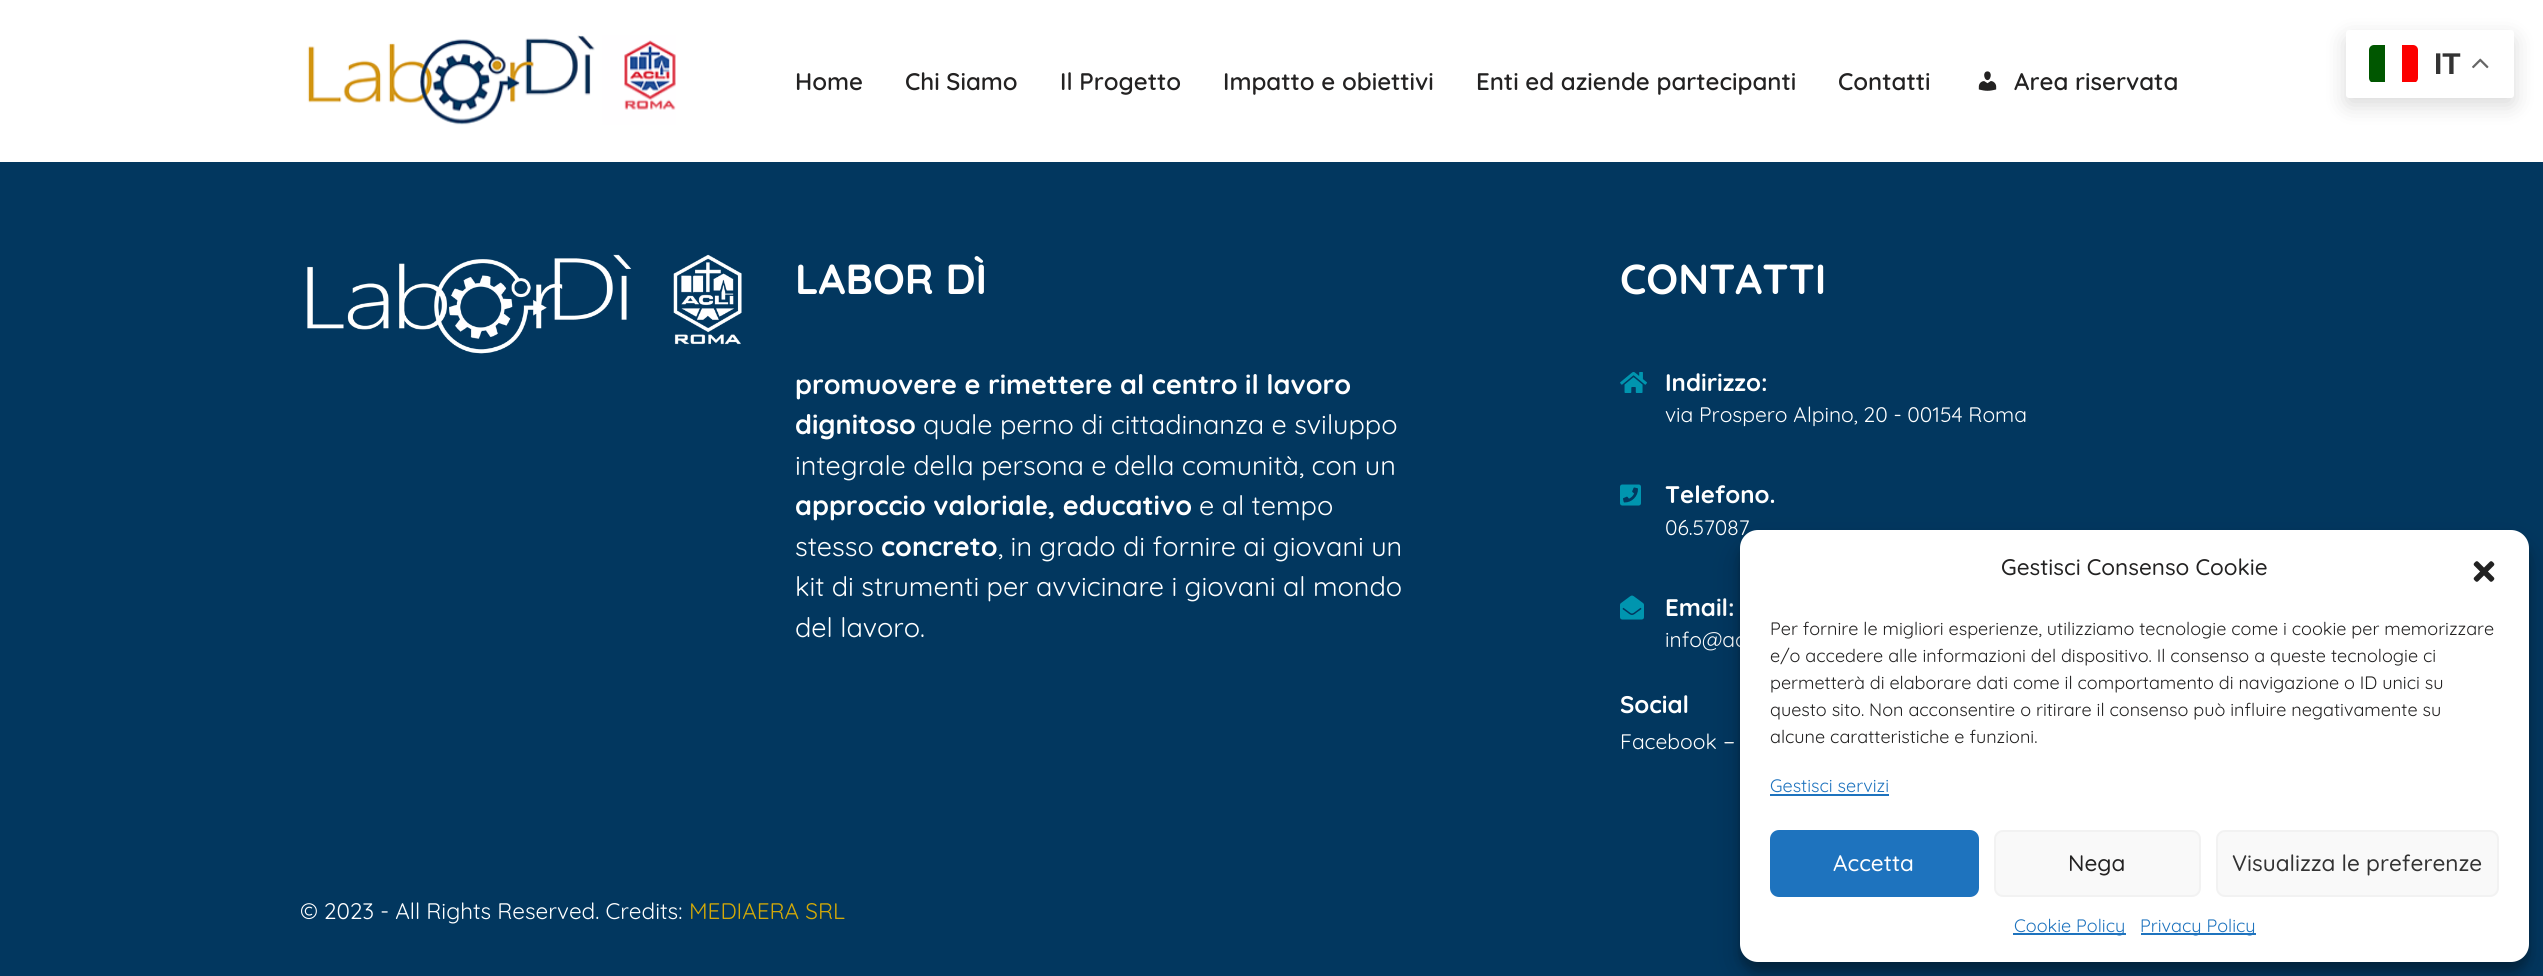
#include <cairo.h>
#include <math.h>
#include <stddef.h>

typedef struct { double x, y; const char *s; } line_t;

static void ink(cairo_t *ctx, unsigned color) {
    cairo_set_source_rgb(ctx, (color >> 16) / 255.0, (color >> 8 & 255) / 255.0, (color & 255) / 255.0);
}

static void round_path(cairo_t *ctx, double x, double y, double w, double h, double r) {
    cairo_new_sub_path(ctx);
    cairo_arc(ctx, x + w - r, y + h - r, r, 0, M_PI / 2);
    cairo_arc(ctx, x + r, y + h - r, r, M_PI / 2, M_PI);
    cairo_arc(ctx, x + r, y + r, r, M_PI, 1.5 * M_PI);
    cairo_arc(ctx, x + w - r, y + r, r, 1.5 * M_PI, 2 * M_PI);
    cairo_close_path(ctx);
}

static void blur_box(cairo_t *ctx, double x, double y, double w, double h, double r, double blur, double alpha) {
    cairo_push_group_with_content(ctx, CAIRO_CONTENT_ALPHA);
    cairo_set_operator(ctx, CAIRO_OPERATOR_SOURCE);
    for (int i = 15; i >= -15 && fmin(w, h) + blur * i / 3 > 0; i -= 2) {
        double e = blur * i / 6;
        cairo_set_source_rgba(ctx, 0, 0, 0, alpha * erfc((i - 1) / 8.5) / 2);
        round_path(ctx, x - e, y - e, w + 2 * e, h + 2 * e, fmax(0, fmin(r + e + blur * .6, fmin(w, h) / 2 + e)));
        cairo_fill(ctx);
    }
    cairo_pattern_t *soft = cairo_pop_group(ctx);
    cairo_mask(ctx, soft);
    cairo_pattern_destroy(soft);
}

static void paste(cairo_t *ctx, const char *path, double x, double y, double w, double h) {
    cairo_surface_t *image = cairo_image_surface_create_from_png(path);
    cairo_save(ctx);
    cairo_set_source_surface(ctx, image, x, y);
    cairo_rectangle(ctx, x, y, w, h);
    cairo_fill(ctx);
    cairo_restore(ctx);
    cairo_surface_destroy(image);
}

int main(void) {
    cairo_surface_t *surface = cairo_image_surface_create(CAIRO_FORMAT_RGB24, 2543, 976);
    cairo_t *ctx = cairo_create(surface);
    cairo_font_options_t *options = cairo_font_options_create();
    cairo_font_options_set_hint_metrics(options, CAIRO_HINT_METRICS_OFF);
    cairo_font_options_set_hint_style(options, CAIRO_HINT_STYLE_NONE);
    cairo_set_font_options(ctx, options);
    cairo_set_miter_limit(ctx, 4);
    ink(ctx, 0x02375F);
    cairo_paint(ctx);
    ink(ctx, 0xFFFFFF);
    cairo_rectangle(ctx, 0, 0, 2543, 162);
    cairo_fill(ctx);
    ink(ctx, 0x000000);
    blur_box(ctx, 2346, 38, 168, 67, 3, 11, 0.15);
    ink(ctx, 0xFFFFFF);
    round_path(ctx, 2346, 30, 168, 68, 3);
    cairo_fill(ctx);
    cairo_save(ctx);
    round_path(ctx, 2369, 45, 49, 38, 5);
    cairo_clip(ctx);
    ink(ctx, 0x005700);
    cairo_new_path(ctx);
    cairo_move_to(ctx, 2374, 45);
    cairo_line_to(ctx, 2385, 45);
    cairo_line_to(ctx, 2385, 82);
    cairo_line_to(ctx, 2369, 82);
    cairo_line_to(ctx, 2369, 50);
    cairo_curve_to(ctx, 2369, 47, 2371, 45, 2374, 45);
    cairo_close_path(ctx);
    cairo_fill(ctx);
    ink(ctx, 0xFC0000);
    cairo_new_path(ctx);
    cairo_move_to(ctx, 2402, 45);
    cairo_line_to(ctx, 2413, 45);
    cairo_curve_to(ctx, 2416, 45, 2418, 47, 2418, 50);
    cairo_line_to(ctx, 2418, 82);
    cairo_line_to(ctx, 2402, 82);
    cairo_close_path(ctx);
    cairo_fill(ctx);
    cairo_restore(ctx);
    cairo_select_font_face(ctx, "Liberation Sans", CAIRO_FONT_SLANT_NORMAL, CAIRO_FONT_WEIGHT_BOLD);
    cairo_set_font_size(ctx, 30);
    ink(ctx, 0x333333);
    cairo_move_to(ctx, 2434, 74);
    cairo_show_text(ctx, "IT");
    paste(ctx, "media/1.png", 2472, 58, 17, 11);
    paste(ctx, "media/2.png", 307, 35, 369, 90);
    cairo_select_font_face(ctx, "Quicksand SemiBold", CAIRO_FONT_SLANT_NORMAL, CAIRO_FONT_WEIGHT_NORMAL);
    cairo_set_font_size(ctx, 24);
    ink(ctx, 0x232222);
    {
        static const line_t items[] = {
            {795, 90, "Home"},
            {905, 90, "Chi Siamo"},
            {1060, 90, "Il Progetto"},
            {1223, 90, "Impatto e obiettivi"},
            {1476, 90, "Enti ed aziende partecipanti"},
            {1838, 90, "Contatti"},
        };
        for (size_t i = 0; i < sizeof items / sizeof *items; i++) {
            cairo_move_to(ctx, items[i].x, items[i].y);
            cairo_show_text(ctx, items[i].s);
        }
    }
    paste(ctx, "media/3.png", 1978, 71, 19, 20);
    cairo_move_to(ctx, 2014, 90);
    cairo_show_text(ctx, "Area riservata");
    paste(ctx, "media/4.png", 307, 254, 435, 100);
    cairo_select_font_face(ctx, "Quicksand", CAIRO_FONT_SLANT_NORMAL, CAIRO_FONT_WEIGHT_BOLD);
    cairo_set_font_size(ctx, 42);
    ink(ctx, 0xFFFFFF);
    cairo_move_to(ctx, 795, 294);
    cairo_show_text(ctx, "LABOR DÌ");
    cairo_set_font_size(ctx, 27);
    cairo_move_to(ctx, 795, 394);
    cairo_show_text(ctx, "promuovere e rimettere al centro il lavoro");
    cairo_move_to(ctx, 795, 434);
    cairo_show_text(ctx, "dignitoso");
    cairo_select_font_face(ctx, "Quicksand", CAIRO_FONT_SLANT_NORMAL, CAIRO_FONT_WEIGHT_NORMAL);
    cairo_move_to(ctx, 923, 434);
    cairo_show_text(ctx, "quale perno di cittadinanza e sviluppo");
    cairo_move_to(ctx, 795, 475);
    cairo_show_text(ctx, "integrale della persona e della comunità, con un");
    cairo_select_font_face(ctx, "Quicksand", CAIRO_FONT_SLANT_NORMAL, CAIRO_FONT_WEIGHT_BOLD);
    cairo_move_to(ctx, 795, 515);
    cairo_show_text(ctx, "approccio valoriale, educativo");
    cairo_select_font_face(ctx, "Quicksand", CAIRO_FONT_SLANT_NORMAL, CAIRO_FONT_WEIGHT_NORMAL);
    cairo_move_to(ctx, 1199, 515);
    cairo_show_text(ctx, "e al tempo");
    cairo_move_to(ctx, 795, 556);
    cairo_show_text(ctx, "stesso");
    cairo_select_font_face(ctx, "Quicksand", CAIRO_FONT_SLANT_NORMAL, CAIRO_FONT_WEIGHT_BOLD);
    cairo_move_to(ctx, 881, 556);
    cairo_show_text(ctx, "concreto");
    cairo_select_font_face(ctx, "Quicksand", CAIRO_FONT_SLANT_NORMAL, CAIRO_FONT_WEIGHT_NORMAL);
    {
        static const line_t items[] = {
            {998, 556, ", in grado di fornire ai giovani un"},
            {795, 596, "kit di strumenti per avvicinare i giovani al mondo"},
            {795, 637, "del lavoro."},
        };
        for (size_t i = 0; i < sizeof items / sizeof *items; i++) {
            cairo_move_to(ctx, items[i].x, items[i].y);
            cairo_show_text(ctx, items[i].s);
        }
    }
    cairo_select_font_face(ctx, "Quicksand", CAIRO_FONT_SLANT_NORMAL, CAIRO_FONT_WEIGHT_BOLD);
    cairo_set_font_size(ctx, 42);
    cairo_move_to(ctx, 1620, 294);
    cairo_show_text(ctx, "CONTATTI");
    paste(ctx, "media/5.png", 1620, 372, 27, 21);
    cairo_set_font_size(ctx, 24);
    cairo_move_to(ctx, 1665, 391);
    cairo_show_text(ctx, "Indirizzo:");
    cairo_select_font_face(ctx, "Quicksand", CAIRO_FONT_SLANT_NORMAL, CAIRO_FONT_WEIGHT_NORMAL);
    cairo_set_font_size(ctx, 21);
    cairo_move_to(ctx, 1665, 422);
    cairo_show_text(ctx, "via Prospero Alpino, 20 - 00154 Roma");
    paste(ctx, "media/6.png", 1620, 484, 21, 22);
    cairo_select_font_face(ctx, "Quicksand", CAIRO_FONT_SLANT_NORMAL, CAIRO_FONT_WEIGHT_BOLD);
    cairo_set_font_size(ctx, 24);
    cairo_move_to(ctx, 1665, 503);
    cairo_show_text(ctx, "Telefono.");
    cairo_select_font_face(ctx, "Quicksand", CAIRO_FONT_SLANT_NORMAL, CAIRO_FONT_WEIGHT_NORMAL);
    cairo_set_font_size(ctx, 21);
    cairo_move_to(ctx, 1665, 535);
    cairo_show_text(ctx, "06.57087");
    paste(ctx, "media/7.png", 1620, 595, 24, 25);
    cairo_select_font_face(ctx, "Quicksand", CAIRO_FONT_SLANT_NORMAL, CAIRO_FONT_WEIGHT_BOLD);
    cairo_set_font_size(ctx, 24);
    cairo_move_to(ctx, 1665, 616);
    cairo_show_text(ctx, "Email:");
    cairo_select_font_face(ctx, "Quicksand", CAIRO_FONT_SLANT_NORMAL, CAIRO_FONT_WEIGHT_NORMAL);
    cairo_set_font_size(ctx, 21);
    cairo_move_to(ctx, 1665, 647);
    cairo_show_text(ctx, "info@ac");
    cairo_select_font_face(ctx, "Quicksand", CAIRO_FONT_SLANT_NORMAL, CAIRO_FONT_WEIGHT_BOLD);
    cairo_set_font_size(ctx, 24);
    cairo_move_to(ctx, 1620, 713);
    cairo_show_text(ctx, "Social");
    cairo_select_font_face(ctx, "Quicksand", CAIRO_FONT_SLANT_NORMAL, CAIRO_FONT_WEIGHT_NORMAL);
    cairo_set_font_size(ctx, 21);
    cairo_move_to(ctx, 1620, 749);
    cairo_show_text(ctx, "Facebook");
    cairo_set_font_size(ctx, 24);
    cairo_move_to(ctx, 1723, 749);
    cairo_show_text(ctx, "–");
    cairo_set_font_size(ctx, 22.5);
    cairo_move_to(ctx, 300, 919);
    cairo_show_text(ctx, "© 2023 - All Rights Reserved. Credits:");
    ink(ctx, 0xD3A907);
    cairo_move_to(ctx, 689, 919);
    cairo_show_text(ctx, "MEDIAERA SRL");
    ink(ctx, 0x000000);
    blur_box(ctx, 1740, 539, 789, 432, 18, 4.5, 0.23);
    blur_box(ctx, 1740, 545, 789, 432, 18, 15, 0.19);
    ink(ctx, 0xFFFFFF);
    round_path(ctx, 1740, 530, 789, 432, 18);
    cairo_fill(ctx);
    cairo_select_font_face(ctx, "Quicksand Medium", CAIRO_FONT_SLANT_NORMAL, CAIRO_FONT_WEIGHT_NORMAL);
    ink(ctx, 0x232222);
    cairo_move_to(ctx, 2001, 575);
    cairo_show_text(ctx, "Gestisci Consenso Cookie");
    paste(ctx, "media/8.png", 2473, 561, 22, 21);
    cairo_select_font_face(ctx, "Quicksand", CAIRO_FONT_SLANT_NORMAL, CAIRO_FONT_WEIGHT_NORMAL);
    cairo_set_font_size(ctx, 18);
    {
        static const line_t items[] = {
            {1770, 635, "Per fornire le migliori esperienze, utilizziamo tecnologie come i cookie per memorizzare"},
            {1770, 662, "e/o accedere alle informazioni del dispositivo. Il consenso a queste tecnologie ci"},
            {1770, 689, "permetterà di elaborare dati come il comportamento di navigazione o ID unici su"},
            {1770, 716, "questo sito. Non acconsentire o ritirare il consenso può influire negativamente su"},
            {1770, 743, "alcune caratteristiche e funzioni."},
        };
        for (size_t i = 0; i < sizeof items / sizeof *items; i++) {
            cairo_move_to(ctx, items[i].x, items[i].y);
            cairo_show_text(ctx, items[i].s);
        }
    }
    ink(ctx, 0x1E73BE);
    cairo_move_to(ctx, 1770, 792);
    cairo_show_text(ctx, "Gestisci servizi");
    cairo_rectangle(ctx, 1770, 794, 119, 2);
    cairo_fill(ctx);
    round_path(ctx, 1771, 831, 207, 65, 8);
    cairo_fill_preserve(ctx);
    cairo_stroke(ctx);
    cairo_select_font_face(ctx, "Quicksand Medium", CAIRO_FONT_SLANT_NORMAL, CAIRO_FONT_WEIGHT_NORMAL);
    cairo_set_font_size(ctx, 22.5);
    ink(ctx, 0xFFFFFF);
    cairo_move_to(ctx, 1833, 871);
    cairo_show_text(ctx, "Accetta");
    ink(ctx, 0xF9F9F9);
    round_path(ctx, 1995, 831, 205, 65, 8);
    cairo_fill_preserve(ctx);
    ink(ctx, 0xF2F2F2);
    cairo_stroke(ctx);
    ink(ctx, 0x232222);
    cairo_move_to(ctx, 2068, 871);
    cairo_show_text(ctx, "Nega");
    ink(ctx, 0xF9F9F9);
    round_path(ctx, 2217, 831, 281, 65, 8);
    cairo_fill_preserve(ctx);
    ink(ctx, 0xF2F2F2);
    cairo_stroke(ctx);
    ink(ctx, 0x333333);
    cairo_move_to(ctx, 2232, 871);
    cairo_show_text(ctx, "Visualizza le preferenze");
    ink(ctx, 0x1E73BE);
    cairo_rectangle(ctx, 2013, 933, 113, 2);
    cairo_fill(ctx);
    cairo_select_font_face(ctx, "Quicksand", CAIRO_FONT_SLANT_NORMAL, CAIRO_FONT_WEIGHT_NORMAL);
    cairo_set_font_size(ctx, 18);
    cairo_move_to(ctx, 2014, 932);
    cairo_show_text(ctx, "Cookie Policy");
    cairo_rectangle(ctx, 2141, 933, 115, 2);
    cairo_fill(ctx);
    cairo_move_to(ctx, 2140, 932);
    cairo_show_text(ctx, "Privacy Policy");
    cairo_surface_write_to_png(surface, "image.png");
    cairo_font_options_destroy(options);
    cairo_destroy(ctx);
    cairo_surface_destroy(surface);
    return 0;
}
